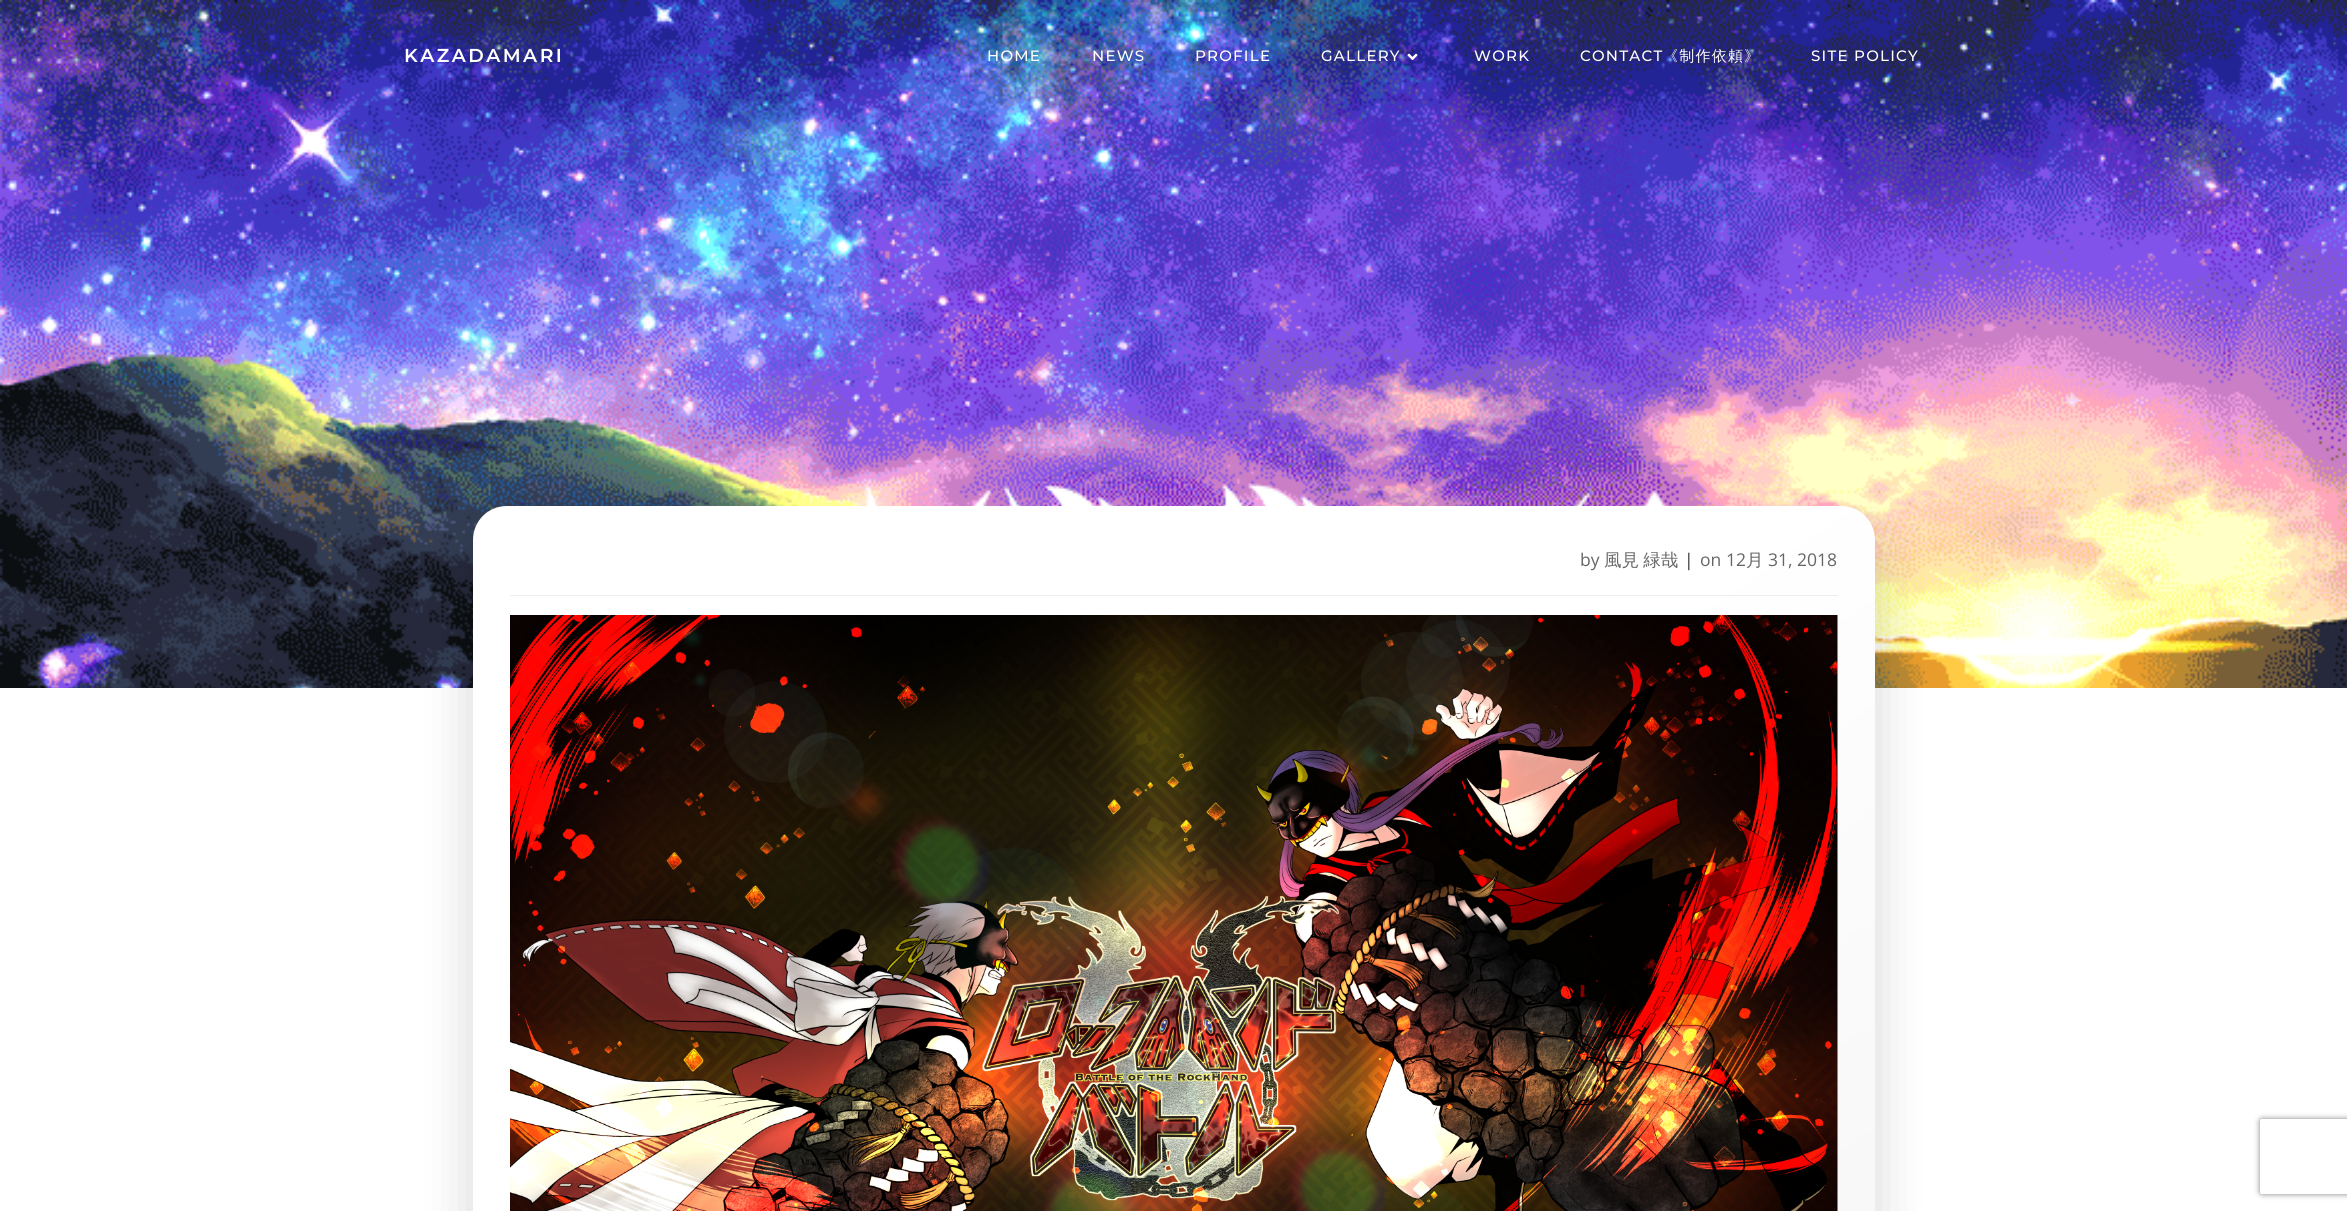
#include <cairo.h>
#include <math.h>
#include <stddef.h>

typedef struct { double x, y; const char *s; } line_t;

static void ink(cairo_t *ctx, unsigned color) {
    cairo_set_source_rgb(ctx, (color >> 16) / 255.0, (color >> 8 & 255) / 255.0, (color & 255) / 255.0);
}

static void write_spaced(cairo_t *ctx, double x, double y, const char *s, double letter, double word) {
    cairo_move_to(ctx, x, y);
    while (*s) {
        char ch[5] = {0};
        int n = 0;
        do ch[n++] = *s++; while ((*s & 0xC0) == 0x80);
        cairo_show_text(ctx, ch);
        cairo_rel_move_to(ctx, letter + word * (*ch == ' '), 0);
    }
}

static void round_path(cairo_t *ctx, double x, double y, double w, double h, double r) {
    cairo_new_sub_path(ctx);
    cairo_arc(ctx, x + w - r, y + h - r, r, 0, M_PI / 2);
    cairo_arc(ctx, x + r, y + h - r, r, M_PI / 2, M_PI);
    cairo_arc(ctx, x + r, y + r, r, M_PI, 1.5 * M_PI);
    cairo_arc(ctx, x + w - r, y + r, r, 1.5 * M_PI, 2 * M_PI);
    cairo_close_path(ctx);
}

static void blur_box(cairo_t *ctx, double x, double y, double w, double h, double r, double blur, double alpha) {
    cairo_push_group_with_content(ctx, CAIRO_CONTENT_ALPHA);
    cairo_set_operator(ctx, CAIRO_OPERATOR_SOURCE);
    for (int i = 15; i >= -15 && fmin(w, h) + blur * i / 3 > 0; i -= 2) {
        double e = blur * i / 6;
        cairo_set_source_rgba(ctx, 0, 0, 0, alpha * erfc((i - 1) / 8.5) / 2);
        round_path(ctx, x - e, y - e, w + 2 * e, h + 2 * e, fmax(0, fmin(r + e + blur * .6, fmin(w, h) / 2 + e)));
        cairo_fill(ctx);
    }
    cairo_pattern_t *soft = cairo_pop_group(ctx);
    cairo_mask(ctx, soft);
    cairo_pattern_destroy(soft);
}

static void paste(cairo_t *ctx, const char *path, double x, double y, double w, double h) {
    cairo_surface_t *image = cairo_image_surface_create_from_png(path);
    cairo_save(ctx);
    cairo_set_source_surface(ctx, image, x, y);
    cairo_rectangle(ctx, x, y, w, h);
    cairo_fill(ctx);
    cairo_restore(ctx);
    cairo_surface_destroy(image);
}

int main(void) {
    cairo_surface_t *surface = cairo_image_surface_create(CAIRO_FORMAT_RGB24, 2347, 1211);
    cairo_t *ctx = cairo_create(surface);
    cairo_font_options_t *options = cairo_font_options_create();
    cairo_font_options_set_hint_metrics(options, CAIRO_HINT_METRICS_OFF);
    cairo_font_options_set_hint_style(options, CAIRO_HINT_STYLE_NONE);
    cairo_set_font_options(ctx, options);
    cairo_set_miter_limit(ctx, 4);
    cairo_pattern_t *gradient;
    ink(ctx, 0xFFFFFF);
    cairo_paint(ctx);
    paste(ctx, "media/1.png", 0, 0, 2347, 688);
    cairo_select_font_face(ctx, "Montserrat SemiBold", CAIRO_FONT_SLANT_NORMAL, CAIRO_FONT_WEIGHT_NORMAL);
    cairo_set_font_size(ctx, 18.75);
    ink(ctx, 0xFFFFFF);
    write_spaced(ctx, 404, 62, "KAZADAMARI", 2.5, 0);
    cairo_select_font_face(ctx, "Montserrat Medium", CAIRO_FONT_SLANT_NORMAL, CAIRO_FONT_WEIGHT_NORMAL);
    cairo_set_font_size(ctx, 15);
    {
        static const line_t items[] = {
            {987, 61, "HOME"},
            {1092, 61, "NEWS"},
            {1195, 61, "PROFILE"},
            {1321, 61, "GALLERY"},
        };
        for (size_t i = 0; i < sizeof items / sizeof *items; i++) {
            write_spaced(ctx, items[i].x, items[i].y, items[i].s, 1.25, 0);
        }
    }
    paste(ctx, "media/2.png", 1407, 53, 11, 8);
    write_spaced(ctx, 1474, 61, "WORK", 1.25, 0);
    write_spaced(ctx, 1580, 61, "CONTACT", 1.25, 0);
    cairo_select_font_face(ctx, "WenQuanYi Zen Hei Medium", CAIRO_FONT_SLANT_NORMAL, CAIRO_FONT_WEIGHT_NORMAL);
    write_spaced(ctx, 1663, 61, "《制作依頼》", 1.25, 0);
    cairo_select_font_face(ctx, "Montserrat Medium", CAIRO_FONT_SLANT_NORMAL, CAIRO_FONT_WEIGHT_NORMAL);
    write_spaced(ctx, 1811, 61, "SITE POLICY", 1.25, 0);
    cairo_save(ctx);
    cairo_rectangle(ctx, 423, 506, 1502, 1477);
    cairo_clip(ctx);
    ink(ctx, 0x000000);
    blur_box(ctx, 470, 529, 1408, 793, 36, 25, 0.15);
    cairo_restore(ctx);
    gradient = cairo_pattern_create_linear(661, 374, 1686, 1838);
    cairo_pattern_add_color_stop_rgba(gradient, 0.42, 1, 1, 1, 1);
    cairo_pattern_add_color_stop_rgba(gradient, 1, 0.953, 0.953, 0.953, 1);
    cairo_set_source(ctx, gradient);
    cairo_pattern_destroy(gradient);
    cairo_new_path(ctx);
    cairo_move_to(ctx, 507, 506);
    cairo_line_to(ctx, 1841, 506);
    cairo_curve_to(ctx, 1860, 506, 1875, 521, 1875, 540);
    cairo_line_to(ctx, 1875, 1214);
    cairo_curve_to(ctx, 1875, 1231, 1861, 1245, 1844, 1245);
    cairo_line_to(ctx, 504, 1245);
    cairo_curve_to(ctx, 487, 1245, 473, 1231, 473, 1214);
    cairo_line_to(ctx, 473, 540);
    cairo_curve_to(ctx, 473, 521, 488, 506, 507, 506);
    cairo_close_path(ctx);
    cairo_fill(ctx);
    ink(ctx, 0xEEEEEE);
    cairo_rectangle(ctx, 510, 595, 1328, 1);
    cairo_fill(ctx);
    cairo_select_font_face(ctx, "Open Sans", CAIRO_FONT_SLANT_NORMAL, CAIRO_FONT_WEIGHT_NORMAL);
    cairo_set_font_size(ctx, 17.5);
    ink(ctx, 0x666666);
    cairo_move_to(ctx, 1580, 566);
    cairo_show_text(ctx, "by");
    cairo_select_font_face(ctx, "WenQuanYi Zen Hei Medium", CAIRO_FONT_SLANT_NORMAL, CAIRO_FONT_WEIGHT_NORMAL);
    write_spaced(ctx, 1604, 566, "風見 緑哉", 0, -1);
    cairo_select_font_face(ctx, "Open Sans", CAIRO_FONT_SLANT_NORMAL, CAIRO_FONT_WEIGHT_NORMAL);
    ink(ctx, 0x333333);
    cairo_move_to(ctx, 1684, 566);
    cairo_show_text(ctx, "|");
    ink(ctx, 0x666666);
    cairo_move_to(ctx, 1700, 566);
    cairo_show_text(ctx, "on");
    cairo_move_to(ctx, 1726, 566);
    cairo_show_text(ctx, "12");
    cairo_select_font_face(ctx, "WenQuanYi Zen Hei Medium", CAIRO_FONT_SLANT_NORMAL, CAIRO_FONT_WEIGHT_NORMAL);
    cairo_move_to(ctx, 1746, 566);
    cairo_show_text(ctx, "月");
    cairo_select_font_face(ctx, "Open Sans", CAIRO_FONT_SLANT_NORMAL, CAIRO_FONT_WEIGHT_NORMAL);
    cairo_move_to(ctx, 1768, 566);
    cairo_show_text(ctx, "31, 2018");
    paste(ctx, "media/3.png", 510, 615, 1328, 596);
    cairo_save(ctx);
    cairo_set_fill_rule(ctx, CAIRO_FILL_RULE_EVEN_ODD);
    cairo_new_path(ctx);
    cairo_move_to(ctx, 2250, 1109);
    cairo_line_to(ctx, 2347, 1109);
    cairo_line_to(ctx, 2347, 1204);
    cairo_line_to(ctx, 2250, 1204);
    cairo_close_path(ctx);
    cairo_move_to(ctx, 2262.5, 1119);
    cairo_line_to(ctx, 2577.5, 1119);
    cairo_curve_to(ctx, 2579, 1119, 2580, 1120, 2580, 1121.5);
    cairo_line_to(ctx, 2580, 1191.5);
    cairo_curve_to(ctx, 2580, 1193, 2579, 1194, 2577.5, 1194);
    cairo_line_to(ctx, 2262.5, 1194);
    cairo_curve_to(ctx, 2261, 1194, 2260, 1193, 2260, 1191.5);
    cairo_line_to(ctx, 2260, 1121.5);
    cairo_curve_to(ctx, 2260, 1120, 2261, 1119, 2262.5, 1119);
    cairo_close_path(ctx);
    cairo_clip(ctx);
    ink(ctx, 0x808080);
    blur_box(ctx, 2260, 1119, 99, 75, 2.5, 3, 1);
    cairo_restore(ctx);
    cairo_surface_write_to_png(surface, "image.png");
    cairo_font_options_destroy(options);
    cairo_destroy(ctx);
    cairo_surface_destroy(surface);
    return 0;
}
